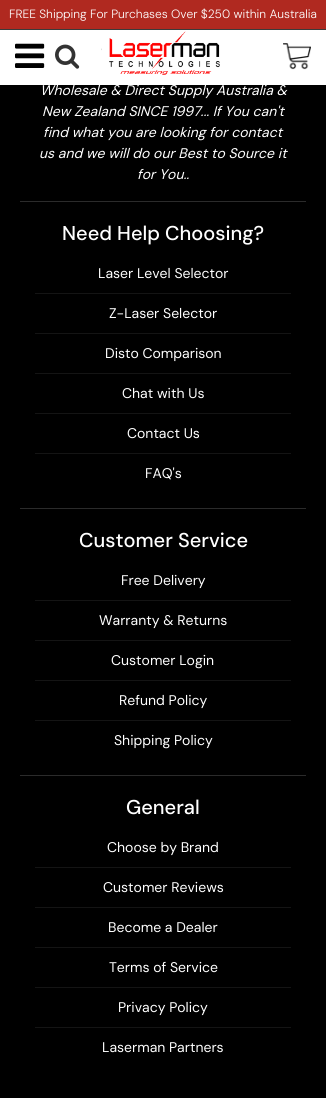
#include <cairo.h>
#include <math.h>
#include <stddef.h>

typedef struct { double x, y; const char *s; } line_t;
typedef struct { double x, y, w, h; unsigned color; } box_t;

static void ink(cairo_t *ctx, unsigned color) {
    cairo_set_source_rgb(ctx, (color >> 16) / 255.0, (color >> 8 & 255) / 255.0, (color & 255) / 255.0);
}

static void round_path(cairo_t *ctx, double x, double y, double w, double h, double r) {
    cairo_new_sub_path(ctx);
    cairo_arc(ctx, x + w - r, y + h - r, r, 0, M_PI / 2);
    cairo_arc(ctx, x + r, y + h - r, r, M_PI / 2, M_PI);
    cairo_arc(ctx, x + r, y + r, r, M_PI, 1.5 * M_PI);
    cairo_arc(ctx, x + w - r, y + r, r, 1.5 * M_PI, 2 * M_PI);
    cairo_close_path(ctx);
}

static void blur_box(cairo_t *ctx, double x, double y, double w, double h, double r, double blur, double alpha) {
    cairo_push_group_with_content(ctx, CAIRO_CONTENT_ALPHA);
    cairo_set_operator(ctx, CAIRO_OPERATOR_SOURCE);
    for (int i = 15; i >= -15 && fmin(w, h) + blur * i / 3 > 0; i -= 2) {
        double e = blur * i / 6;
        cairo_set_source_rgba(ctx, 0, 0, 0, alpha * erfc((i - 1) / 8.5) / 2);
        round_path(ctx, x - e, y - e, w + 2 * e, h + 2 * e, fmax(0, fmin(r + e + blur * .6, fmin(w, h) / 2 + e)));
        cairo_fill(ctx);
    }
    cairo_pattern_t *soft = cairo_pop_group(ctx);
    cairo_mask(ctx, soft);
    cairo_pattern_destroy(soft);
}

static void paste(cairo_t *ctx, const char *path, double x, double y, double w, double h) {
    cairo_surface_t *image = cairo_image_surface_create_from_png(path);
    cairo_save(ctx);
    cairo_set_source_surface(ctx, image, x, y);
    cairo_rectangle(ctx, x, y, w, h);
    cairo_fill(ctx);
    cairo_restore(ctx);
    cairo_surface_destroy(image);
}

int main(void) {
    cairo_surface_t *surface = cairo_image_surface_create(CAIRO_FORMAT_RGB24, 326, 1098);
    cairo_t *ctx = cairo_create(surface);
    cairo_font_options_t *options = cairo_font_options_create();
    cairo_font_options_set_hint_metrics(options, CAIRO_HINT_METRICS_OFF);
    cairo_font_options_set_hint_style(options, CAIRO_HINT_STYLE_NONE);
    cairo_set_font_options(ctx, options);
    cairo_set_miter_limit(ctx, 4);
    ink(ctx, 0x000000);
    cairo_paint(ctx);
    blur_box(ctx, 0, 3, 326, 85, 0, 1.5, 0.2);
    {
        static const box_t items[] = {
            {0, 30, 326, 55, 0xFFFFFF},
            {0, 0, 326, 29, 0xB02920},
            {0, 29, 326, 1, 0x3B3B3B},
        };
        for (size_t i = 0; i < sizeof items / sizeof *items; i++) {
            ink(ctx, items[i].color);
            cairo_rectangle(ctx, items[i].x, items[i].y, items[i].w, items[i].h);
            cairo_fill(ctx);
        }
    }
    cairo_select_font_face(ctx, "DM Sans Light", CAIRO_FONT_SLANT_NORMAL, CAIRO_FONT_WEIGHT_NORMAL);
    cairo_set_font_size(ctx, 12);
    ink(ctx, 0xFFFFFF);
    cairo_move_to(ctx, 9, 18);
    cairo_show_text(ctx, "FREE Shipping For Purchases Over $250 within Australia");
    paste(ctx, "media/1.png", 15, 43, 30, 25);
    paste(ctx, "media/2.png", 55, 44, 25, 25);
    paste(ctx, "media/3.png", 101, 31, 119, 44);
    paste(ctx, "media/4.png", 283, 43, 28, 27);
    ink(ctx, 0x2B2B2B);
    cairo_rectangle(ctx, 20, 201, 286, 1);
    cairo_fill(ctx);
    cairo_select_font_face(ctx, "DM Sans", CAIRO_FONT_SLANT_ITALIC, CAIRO_FONT_WEIGHT_NORMAL);
    cairo_set_font_size(ctx, 14);
    ink(ctx, 0xFFFFFF);
    {
        static const line_t items[] = {
            {40, 95, "Wholesale & Direct Supply Australia &"},
            {42, 116, "New Zealand SINCE 1997... If You can't"},
            {43, 137, "find what you are looking for contact"},
            {39, 158, "us and we will do our Best to Source it"},
            {137, 179, "for You.."},
        };
        for (size_t i = 0; i < sizeof items / sizeof *items; i++) {
            cairo_move_to(ctx, items[i].x, items[i].y);
            cairo_show_text(ctx, items[i].s);
        }
    }
    ink(ctx, 0x2B2B2B);
    cairo_rectangle(ctx, 20, 508, 286, 1);
    cairo_fill(ctx);
    cairo_select_font_face(ctx, "DM Sans Medium", CAIRO_FONT_SLANT_NORMAL, CAIRO_FONT_WEIGHT_NORMAL);
    cairo_set_font_size(ctx, 20);
    ink(ctx, 0xFFFFFF);
    cairo_move_to(ctx, 62, 240);
    cairo_show_text(ctx, "Need Help Choosing?");
    ink(ctx, 0x141414);
    cairo_rectangle(ctx, 35, 293, 256, 1);
    cairo_fill(ctx);
    cairo_select_font_face(ctx, "DM Sans", CAIRO_FONT_SLANT_NORMAL, CAIRO_FONT_WEIGHT_NORMAL);
    cairo_set_font_size(ctx, 14);
    ink(ctx, 0xFFFFFF);
    cairo_move_to(ctx, 98, 278);
    cairo_show_text(ctx, "Laser Level Selector");
    ink(ctx, 0x141414);
    cairo_rectangle(ctx, 35, 333, 256, 1);
    cairo_fill(ctx);
    ink(ctx, 0xFFFFFF);
    cairo_move_to(ctx, 109, 318);
    cairo_show_text(ctx, "Z-Laser Selector");
    ink(ctx, 0x141414);
    cairo_rectangle(ctx, 35, 373, 256, 1);
    cairo_fill(ctx);
    ink(ctx, 0xFFFFFF);
    cairo_move_to(ctx, 105, 358);
    cairo_show_text(ctx, "Disto Comparison");
    ink(ctx, 0x141414);
    cairo_rectangle(ctx, 35, 413, 256, 1);
    cairo_fill(ctx);
    ink(ctx, 0xFFFFFF);
    cairo_move_to(ctx, 122, 398);
    cairo_show_text(ctx, "Chat with Us");
    ink(ctx, 0x141414);
    cairo_rectangle(ctx, 35, 453, 256, 1);
    cairo_fill(ctx);
    ink(ctx, 0xFFFFFF);
    cairo_move_to(ctx, 127, 438);
    cairo_show_text(ctx, "Contact Us");
    cairo_move_to(ctx, 145, 478);
    cairo_show_text(ctx, "FAQ's");
    ink(ctx, 0x2B2B2B);
    cairo_rectangle(ctx, 20, 775, 286, 1);
    cairo_fill(ctx);
    cairo_select_font_face(ctx, "DM Sans Medium", CAIRO_FONT_SLANT_NORMAL, CAIRO_FONT_WEIGHT_NORMAL);
    cairo_set_font_size(ctx, 20);
    ink(ctx, 0xFFFFFF);
    cairo_move_to(ctx, 79, 547);
    cairo_show_text(ctx, "Customer Service");
    ink(ctx, 0x141414);
    cairo_rectangle(ctx, 35, 600, 256, 1);
    cairo_fill(ctx);
    cairo_select_font_face(ctx, "DM Sans", CAIRO_FONT_SLANT_NORMAL, CAIRO_FONT_WEIGHT_NORMAL);
    cairo_set_font_size(ctx, 14);
    ink(ctx, 0xFFFFFF);
    cairo_move_to(ctx, 121, 585);
    cairo_show_text(ctx, "Free Delivery");
    ink(ctx, 0x141414);
    cairo_rectangle(ctx, 35, 640, 256, 1);
    cairo_fill(ctx);
    ink(ctx, 0xFFFFFF);
    cairo_move_to(ctx, 99, 625);
    cairo_show_text(ctx, "Warranty & Returns");
    ink(ctx, 0x141414);
    cairo_rectangle(ctx, 35, 680, 256, 1);
    cairo_fill(ctx);
    ink(ctx, 0xFFFFFF);
    cairo_move_to(ctx, 111, 665);
    cairo_show_text(ctx, "Customer Login");
    ink(ctx, 0x141414);
    cairo_rectangle(ctx, 35, 720, 256, 1);
    cairo_fill(ctx);
    ink(ctx, 0xFFFFFF);
    cairo_move_to(ctx, 119, 705);
    cairo_show_text(ctx, "Refund Policy");
    cairo_move_to(ctx, 114, 745);
    cairo_show_text(ctx, "Shipping Policy");
    cairo_select_font_face(ctx, "DM Sans Medium", CAIRO_FONT_SLANT_NORMAL, CAIRO_FONT_WEIGHT_NORMAL);
    cairo_set_font_size(ctx, 20);
    cairo_move_to(ctx, 126, 814);
    cairo_show_text(ctx, "General");
    ink(ctx, 0x141414);
    cairo_rectangle(ctx, 35, 867, 256, 1);
    cairo_fill(ctx);
    cairo_select_font_face(ctx, "DM Sans", CAIRO_FONT_SLANT_NORMAL, CAIRO_FONT_WEIGHT_NORMAL);
    cairo_set_font_size(ctx, 14);
    ink(ctx, 0xFFFFFF);
    cairo_move_to(ctx, 107, 852);
    cairo_show_text(ctx, "Choose by Brand");
    ink(ctx, 0x141414);
    cairo_rectangle(ctx, 35, 907, 256, 1);
    cairo_fill(ctx);
    ink(ctx, 0xFFFFFF);
    cairo_move_to(ctx, 103, 892);
    cairo_show_text(ctx, "Customer Reviews");
    ink(ctx, 0x141414);
    cairo_rectangle(ctx, 35, 947, 256, 1);
    cairo_fill(ctx);
    ink(ctx, 0xFFFFFF);
    cairo_move_to(ctx, 108, 932);
    cairo_show_text(ctx, "Become a Dealer");
    ink(ctx, 0x141414);
    cairo_rectangle(ctx, 35, 987, 256, 1);
    cairo_fill(ctx);
    ink(ctx, 0xFFFFFF);
    cairo_move_to(ctx, 109, 972);
    cairo_show_text(ctx, "Terms of Service");
    ink(ctx, 0x141414);
    cairo_rectangle(ctx, 35, 1027, 256, 1);
    cairo_fill(ctx);
    ink(ctx, 0xFFFFFF);
    cairo_move_to(ctx, 118, 1012);
    cairo_show_text(ctx, "Privacy Policy");
    cairo_move_to(ctx, 102, 1052);
    cairo_show_text(ctx, "Laserman Partners");
    cairo_surface_write_to_png(surface, "image.png");
    cairo_font_options_destroy(options);
    cairo_destroy(ctx);
    cairo_surface_destroy(surface);
    return 0;
}
